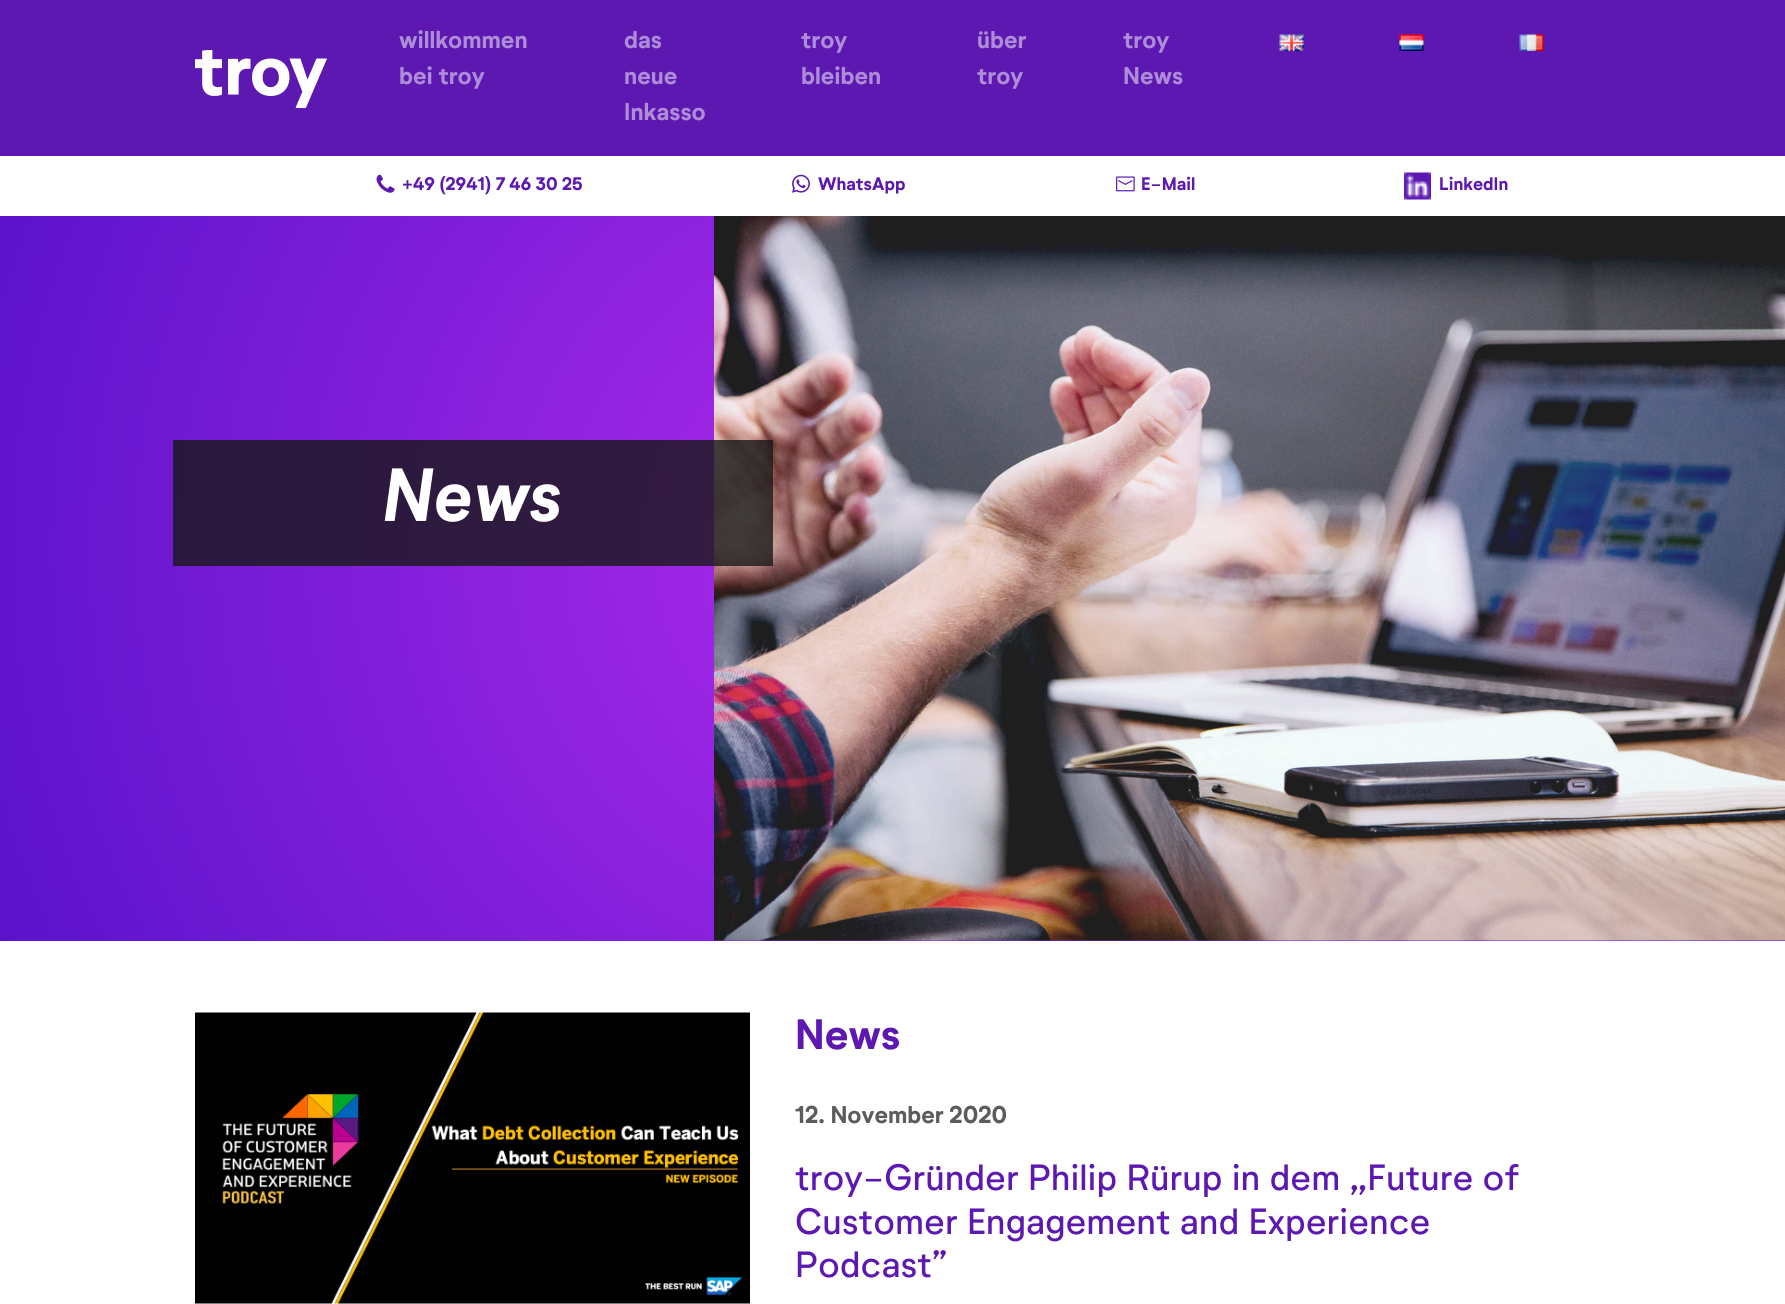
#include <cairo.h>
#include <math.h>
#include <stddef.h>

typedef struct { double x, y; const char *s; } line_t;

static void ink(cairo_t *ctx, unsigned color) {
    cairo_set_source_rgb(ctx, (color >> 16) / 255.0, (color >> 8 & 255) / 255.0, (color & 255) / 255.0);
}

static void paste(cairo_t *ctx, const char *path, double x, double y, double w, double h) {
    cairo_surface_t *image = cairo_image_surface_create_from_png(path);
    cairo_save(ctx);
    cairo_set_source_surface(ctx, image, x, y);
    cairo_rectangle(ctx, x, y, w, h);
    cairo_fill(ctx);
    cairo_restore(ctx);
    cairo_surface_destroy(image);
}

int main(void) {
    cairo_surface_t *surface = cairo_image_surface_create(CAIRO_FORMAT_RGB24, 1785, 1304);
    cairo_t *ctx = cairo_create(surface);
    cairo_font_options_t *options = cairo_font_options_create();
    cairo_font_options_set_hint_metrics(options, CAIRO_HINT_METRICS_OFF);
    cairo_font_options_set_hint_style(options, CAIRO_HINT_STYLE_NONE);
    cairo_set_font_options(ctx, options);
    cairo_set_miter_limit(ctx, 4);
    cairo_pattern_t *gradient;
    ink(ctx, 0xFFFFFF);
    cairo_paint(ctx);
    ink(ctx, 0x5C18B1);
    cairo_rectangle(ctx, 0, 0, 1785, 156);
    cairo_fill(ctx);
    paste(ctx, "media/1.png", 195, 50, 132, 58);
    cairo_select_font_face(ctx, "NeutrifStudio", CAIRO_FONT_SLANT_NORMAL, CAIRO_FONT_WEIGHT_NORMAL);
    cairo_set_font_size(ctx, 24);
    ink(ctx, 0xAE8CD8);
    {
        static const line_t items[] = {
            {399, 48, "willkommen"},
            {399, 84, "bei troy"},
            {624, 48, "das"},
            {624, 84, "neue"},
            {624, 120, "Inkasso"},
            {801, 48, "troy"},
            {801, 84, "bleiben"},
            {977, 48, "über"},
            {977, 84, "troy"},
            {1123, 48, "troy"},
            {1123, 84, "News"},
        };
        for (size_t i = 0; i < sizeof items / sizeof *items; i++) {
            cairo_move_to(ctx, items[i].x, items[i].y);
            cairo_show_text(ctx, items[i].s);
        }
    }
    paste(ctx, "media/2.png", 1279, 34, 25, 17);
    paste(ctx, "media/3.png", 1399, 34, 25, 17);
    paste(ctx, "media/4.png", 1519, 34, 25, 17);
    paste(ctx, "media/5.png", 376, 174, 19, 19);
    cairo_set_font_size(ctx, 18);
    ink(ctx, 0x5C18B1);
    cairo_move_to(ctx, 402, 190);
    cairo_show_text(ctx, "+49 (2941) 7 46 30 25");
    paste(ctx, "media/6.png", 792, 174, 18, 19);
    cairo_move_to(ctx, 818, 190);
    cairo_show_text(ctx, "WhatsApp");
    paste(ctx, "media/7.png", 1116, 176, 19, 16);
    cairo_move_to(ctx, 1141, 190);
    cairo_show_text(ctx, "E-Mail");
    paste(ctx, "media/8.png", 1404, 172, 27, 28);
    cairo_move_to(ctx, 1439, 190);
    cairo_show_text(ctx, "LinkedIn");
    gradient = cairo_pattern_create_radial(893, 549, 0, 893, 549, 975);
    cairo_pattern_add_color_stop_rgba(gradient, 0, 0.682, 0.169, 0.922, 1);
    cairo_pattern_add_color_stop_rgba(gradient, 1, 0.353, 0.075, 0.796, 1);
    cairo_set_source(ctx, gradient);
    cairo_pattern_destroy(gradient);
    cairo_rectangle(ctx, 0, 216, 1785, 725);
    cairo_fill(ctx);
    paste(ctx, "media/9.png", 714, 216, 1071, 725);
    cairo_set_source_rgba(ctx, 0.094, 0.094, 0.094, 0.8);
    cairo_rectangle(ctx, 173, 440, 600, 126);
    cairo_fill(ctx);
    cairo_select_font_face(ctx, "NeutrifStudio", CAIRO_FONT_SLANT_ITALIC, CAIRO_FONT_WEIGHT_NORMAL);
    cairo_set_font_size(ctx, 72);
    ink(ctx, 0xFFFFFF);
    cairo_move_to(ctx, 382, 521);
    cairo_show_text(ctx, "News");
    paste(ctx, "media/10.png", 195, 1012, 555, 292);
    cairo_select_font_face(ctx, "NeutrifStudio", CAIRO_FONT_SLANT_NORMAL, CAIRO_FONT_WEIGHT_NORMAL);
    cairo_set_font_size(ctx, 42);
    ink(ctx, 0x5C18B1);
    cairo_move_to(ctx, 795, 1049);
    cairo_show_text(ctx, "News");
    cairo_set_font_size(ctx, 24);
    ink(ctx, 0x5C5C5C);
    cairo_move_to(ctx, 795, 1123);
    cairo_show_text(ctx, "12. November 2020");
    cairo_select_font_face(ctx, "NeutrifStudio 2", CAIRO_FONT_SLANT_NORMAL, CAIRO_FONT_WEIGHT_NORMAL);
    cairo_set_font_size(ctx, 36);
    ink(ctx, 0x5C18B1);
    {
        static const line_t items[] = {
            {795, 1190, "troy-Gründer Philip Rürup in dem „Future of"},
            {795, 1234, "Customer Engagement and Experience"},
            {795, 1277, "Podcast”"},
        };
        for (size_t i = 0; i < sizeof items / sizeof *items; i++) {
            cairo_move_to(ctx, items[i].x, items[i].y);
            cairo_show_text(ctx, items[i].s);
        }
    }
    cairo_surface_write_to_png(surface, "image.png");
    cairo_font_options_destroy(options);
    cairo_destroy(ctx);
    cairo_surface_destroy(surface);
    return 0;
}
